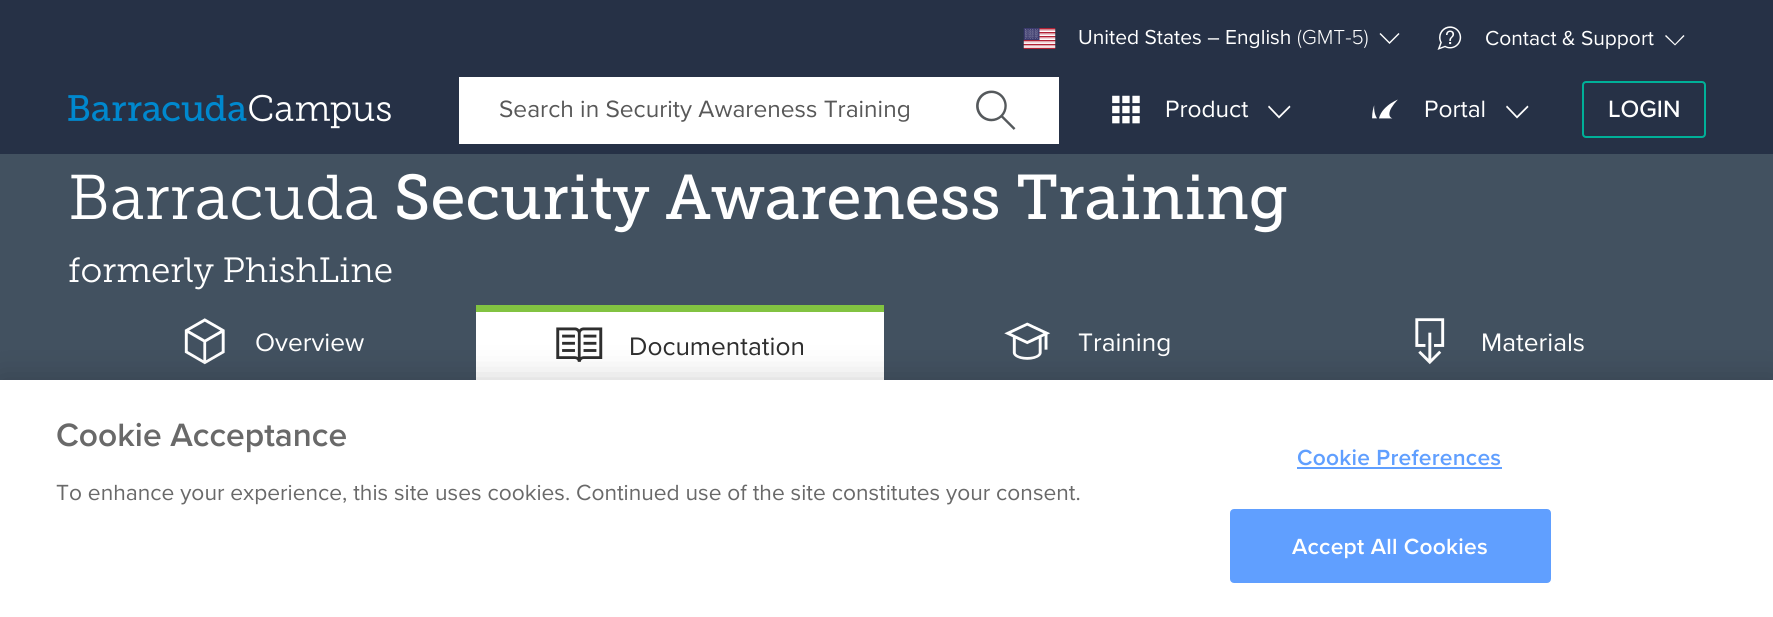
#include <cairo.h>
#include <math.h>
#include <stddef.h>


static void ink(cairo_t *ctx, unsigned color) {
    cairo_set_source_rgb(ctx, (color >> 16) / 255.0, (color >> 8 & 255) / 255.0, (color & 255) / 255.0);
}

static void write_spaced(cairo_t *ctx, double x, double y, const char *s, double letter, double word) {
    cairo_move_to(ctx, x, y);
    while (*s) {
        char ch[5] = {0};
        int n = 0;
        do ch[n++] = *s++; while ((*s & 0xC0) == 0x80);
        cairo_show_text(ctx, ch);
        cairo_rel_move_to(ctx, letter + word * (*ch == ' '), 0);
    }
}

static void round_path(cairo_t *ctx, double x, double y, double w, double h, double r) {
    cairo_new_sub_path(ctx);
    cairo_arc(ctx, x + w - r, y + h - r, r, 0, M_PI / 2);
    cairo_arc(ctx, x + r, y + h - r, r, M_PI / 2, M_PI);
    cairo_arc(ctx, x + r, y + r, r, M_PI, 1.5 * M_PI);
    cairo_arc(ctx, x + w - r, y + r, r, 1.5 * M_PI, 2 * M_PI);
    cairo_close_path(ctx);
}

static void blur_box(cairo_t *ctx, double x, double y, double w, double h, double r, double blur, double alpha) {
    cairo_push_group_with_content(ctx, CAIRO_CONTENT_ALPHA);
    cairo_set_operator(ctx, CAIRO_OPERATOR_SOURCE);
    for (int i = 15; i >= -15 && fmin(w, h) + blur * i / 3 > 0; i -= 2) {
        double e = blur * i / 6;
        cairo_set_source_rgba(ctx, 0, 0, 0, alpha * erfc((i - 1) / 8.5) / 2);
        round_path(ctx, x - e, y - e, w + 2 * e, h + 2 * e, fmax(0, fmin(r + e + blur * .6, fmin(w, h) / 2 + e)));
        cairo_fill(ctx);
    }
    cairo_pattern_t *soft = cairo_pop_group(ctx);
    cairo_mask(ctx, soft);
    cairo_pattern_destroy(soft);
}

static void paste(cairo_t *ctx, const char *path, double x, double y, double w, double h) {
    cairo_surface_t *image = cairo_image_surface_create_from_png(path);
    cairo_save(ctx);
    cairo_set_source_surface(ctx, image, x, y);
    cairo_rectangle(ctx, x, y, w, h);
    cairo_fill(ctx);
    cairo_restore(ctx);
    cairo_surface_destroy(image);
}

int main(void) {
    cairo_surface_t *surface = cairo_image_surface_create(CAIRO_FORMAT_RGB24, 1773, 617);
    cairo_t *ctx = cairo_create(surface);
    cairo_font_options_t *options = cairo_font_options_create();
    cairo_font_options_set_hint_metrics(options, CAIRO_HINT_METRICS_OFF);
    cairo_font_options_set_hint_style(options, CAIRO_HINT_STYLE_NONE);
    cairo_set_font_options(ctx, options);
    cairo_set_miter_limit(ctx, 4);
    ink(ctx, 0x263146);
    cairo_paint(ctx);
    paste(ctx, "media/1.png", 1023, 28, 33, 21);
    cairo_select_font_face(ctx, "Proxima Nova", CAIRO_FONT_SLANT_NORMAL, CAIRO_FONT_WEIGHT_NORMAL);
    cairo_set_font_size(ctx, 21);
    ink(ctx, 0xFFFFFF);
    cairo_move_to(ctx, 1078, 44);
    cairo_show_text(ctx, "United States – English");
    cairo_select_font_face(ctx, "Proxima Nova Light", CAIRO_FONT_SLANT_NORMAL, CAIRO_FONT_WEIGHT_NORMAL);
    cairo_move_to(ctx, 1297, 44);
    cairo_show_text(ctx, "(GMT-5)");
    cairo_new_path(ctx);
    cairo_move_to(ctx, 1389.5, 44);
    cairo_line_to(ctx, 1379.5, 34);
    cairo_line_to(ctx, 1380.5, 33);
    cairo_line_to(ctx, 1389.5, 42);
    cairo_line_to(ctx, 1398.5, 33);
    cairo_line_to(ctx, 1399.5, 34);
    cairo_close_path(ctx);
    cairo_fill(ctx);
    paste(ctx, "media/2.png", 1437, 26, 25, 24);
    cairo_select_font_face(ctx, "Proxima Nova", CAIRO_FONT_SLANT_NORMAL, CAIRO_FONT_WEIGHT_NORMAL);
    cairo_move_to(ctx, 1485, 45);
    cairo_show_text(ctx, "Contact & Support");
    cairo_new_path(ctx);
    cairo_move_to(ctx, 1675, 45.5);
    cairo_line_to(ctx, 1665, 36);
    cairo_line_to(ctx, 1666, 35);
    cairo_line_to(ctx, 1675, 44);
    cairo_line_to(ctx, 1683.5, 35);
    cairo_line_to(ctx, 1684.5, 36);
    cairo_close_path(ctx);
    cairo_fill(ctx);
    paste(ctx, "media/3.png", 68, 94, 323, 35);
    cairo_rectangle(ctx, 459, 77, 600, 67);
    cairo_fill(ctx);
    cairo_set_font_size(ctx, 24.5);
    ink(ctx, 0x585858);
    cairo_move_to(ctx, 499, 117);
    cairo_show_text(ctx, "Search in Security Awareness Training");
    paste(ctx, "media/4.png", 976, 90, 40, 40);
    paste(ctx, "media/5.png", 1112, 95, 28, 29);
    ink(ctx, 0xFFFFFF);
    cairo_move_to(ctx, 1165, 117);
    cairo_show_text(ctx, "Product");
    cairo_new_path(ctx);
    cairo_move_to(ctx, 1279, 118.5);
    cairo_line_to(ctx, 1268, 107);
    cairo_line_to(ctx, 1269, 105.5);
    cairo_line_to(ctx, 1279, 116);
    cairo_line_to(ctx, 1289.5, 105.5);
    cairo_line_to(ctx, 1290.5, 107);
    cairo_close_path(ctx);
    cairo_fill(ctx);
    paste(ctx, "media/6.png", 1372, 99, 26, 20);
    cairo_move_to(ctx, 1424, 117);
    cairo_show_text(ctx, "Portal");
    cairo_new_path(ctx);
    cairo_move_to(ctx, 1517, 118.5);
    cairo_line_to(ctx, 1506, 107);
    cairo_line_to(ctx, 1507, 105.5);
    cairo_line_to(ctx, 1517, 116);
    cairo_line_to(ctx, 1527.5, 105.5);
    cairo_line_to(ctx, 1528.5, 107);
    cairo_close_path(ctx);
    cairo_fill(ctx);
    round_path(ctx, 1583, 82, 122, 55, 3);
    ink(ctx, 0x00B098);
    cairo_stroke(ctx);
    cairo_select_font_face(ctx, "Proxima Nova Medium", CAIRO_FONT_SLANT_NORMAL, CAIRO_FONT_WEIGHT_NORMAL);
    ink(ctx, 0xFFFFFF);
    cairo_move_to(ctx, 1608, 117);
    cairo_show_text(ctx, "LOGIN");
    ink(ctx, 0x425160);
    cairo_rectangle(ctx, 0, 154, 1773, 226);
    cairo_fill(ctx);
    cairo_select_font_face(ctx, "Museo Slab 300 Light", CAIRO_FONT_SLANT_NORMAL, CAIRO_FONT_WEIGHT_NORMAL);
    cairo_set_font_size(ctx, 63);
    ink(ctx, 0xFFFFFF);
    cairo_move_to(ctx, 68, 219);
    cairo_show_text(ctx, "Barracuda");
    cairo_select_font_face(ctx, "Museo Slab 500", CAIRO_FONT_SLANT_NORMAL, CAIRO_FONT_WEIGHT_NORMAL);
    cairo_move_to(ctx, 394, 219);
    cairo_show_text(ctx, "Security Awareness Training");
    cairo_select_font_face(ctx, "Museo Slab 300 Light", CAIRO_FONT_SLANT_NORMAL, CAIRO_FONT_WEIGHT_NORMAL);
    cairo_set_font_size(ctx, 35);
    cairo_move_to(ctx, 68, 282);
    cairo_show_text(ctx, "formerly PhishLine");
    paste(ctx, "media/7.png", 184, 318, 41, 47);
    cairo_select_font_face(ctx, "Proxima Nova", CAIRO_FONT_SLANT_NORMAL, CAIRO_FONT_WEIGHT_NORMAL);
    cairo_set_font_size(ctx, 26.25);
    cairo_move_to(ctx, 255, 351);
    cairo_show_text(ctx, "Overview");
    cairo_rectangle(ctx, 476, 312, 408, 68);
    cairo_fill(ctx);
    ink(ctx, 0x82C341);
    cairo_rectangle(ctx, 476, 305, 408, 7);
    cairo_fill(ctx);
    paste(ctx, "media/8.png", 556, 327, 47, 35);
    ink(ctx, 0x2E2E2E);
    cairo_move_to(ctx, 629, 355);
    cairo_show_text(ctx, "Documentation");
    paste(ctx, "media/9.png", 1004, 322, 47, 38);
    ink(ctx, 0xFFFFFF);
    cairo_move_to(ctx, 1078, 351);
    cairo_show_text(ctx, "Training");
    paste(ctx, "media/10.png", 1415, 318, 30, 47);
    cairo_move_to(ctx, 1481, 351);
    cairo_show_text(ctx, "Materials");
    ink(ctx, 0x000000);
    blur_box(ctx, 0, 380, 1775, 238, 0, 16, 0.2);
    ink(ctx, 0xFFFFFF);
    cairo_rectangle(ctx, 0, 380, 1773, 237);
    cairo_fill(ctx);
    cairo_select_font_face(ctx, "Proxima Nova SemiBold", CAIRO_FONT_SLANT_NORMAL, CAIRO_FONT_WEIGHT_NORMAL);
    cairo_set_font_size(ctx, 33.5);
    ink(ctx, 0x696969);
    cairo_move_to(ctx, 56, 446);
    cairo_show_text(ctx, "Cookie Acceptance");
    cairo_select_font_face(ctx, "Proxima Nova", CAIRO_FONT_SLANT_NORMAL, CAIRO_FONT_WEIGHT_NORMAL);
    cairo_set_font_size(ctx, 22.75);
    cairo_move_to(ctx, 56, 500);
    cairo_show_text(ctx, "To enhance your experience, this site uses cookies. Continued use of the site constitutes your consent.");
    cairo_select_font_face(ctx, "Proxima Nova SemiBold", CAIRO_FONT_SLANT_NORMAL, CAIRO_FONT_WEIGHT_NORMAL);
    ink(ctx, 0x609FFF);
    write_spaced(ctx, 1297, 465, "Cookie Preferences", 0.25, 0);
    cairo_rectangle(ctx, 1297, 467, 205, 2);
    cairo_fill(ctx);
    round_path(ctx, 1231, 510, 319, 72, 3);
    cairo_fill_preserve(ctx);
    cairo_stroke(ctx);
    ink(ctx, 0xFFFFFF);
    write_spaced(ctx, 1292, 554, "Accept All Cookies", 0.25, 0);
    cairo_surface_write_to_png(surface, "image.png");
    cairo_font_options_destroy(options);
    cairo_destroy(ctx);
    cairo_surface_destroy(surface);
    return 0;
}
